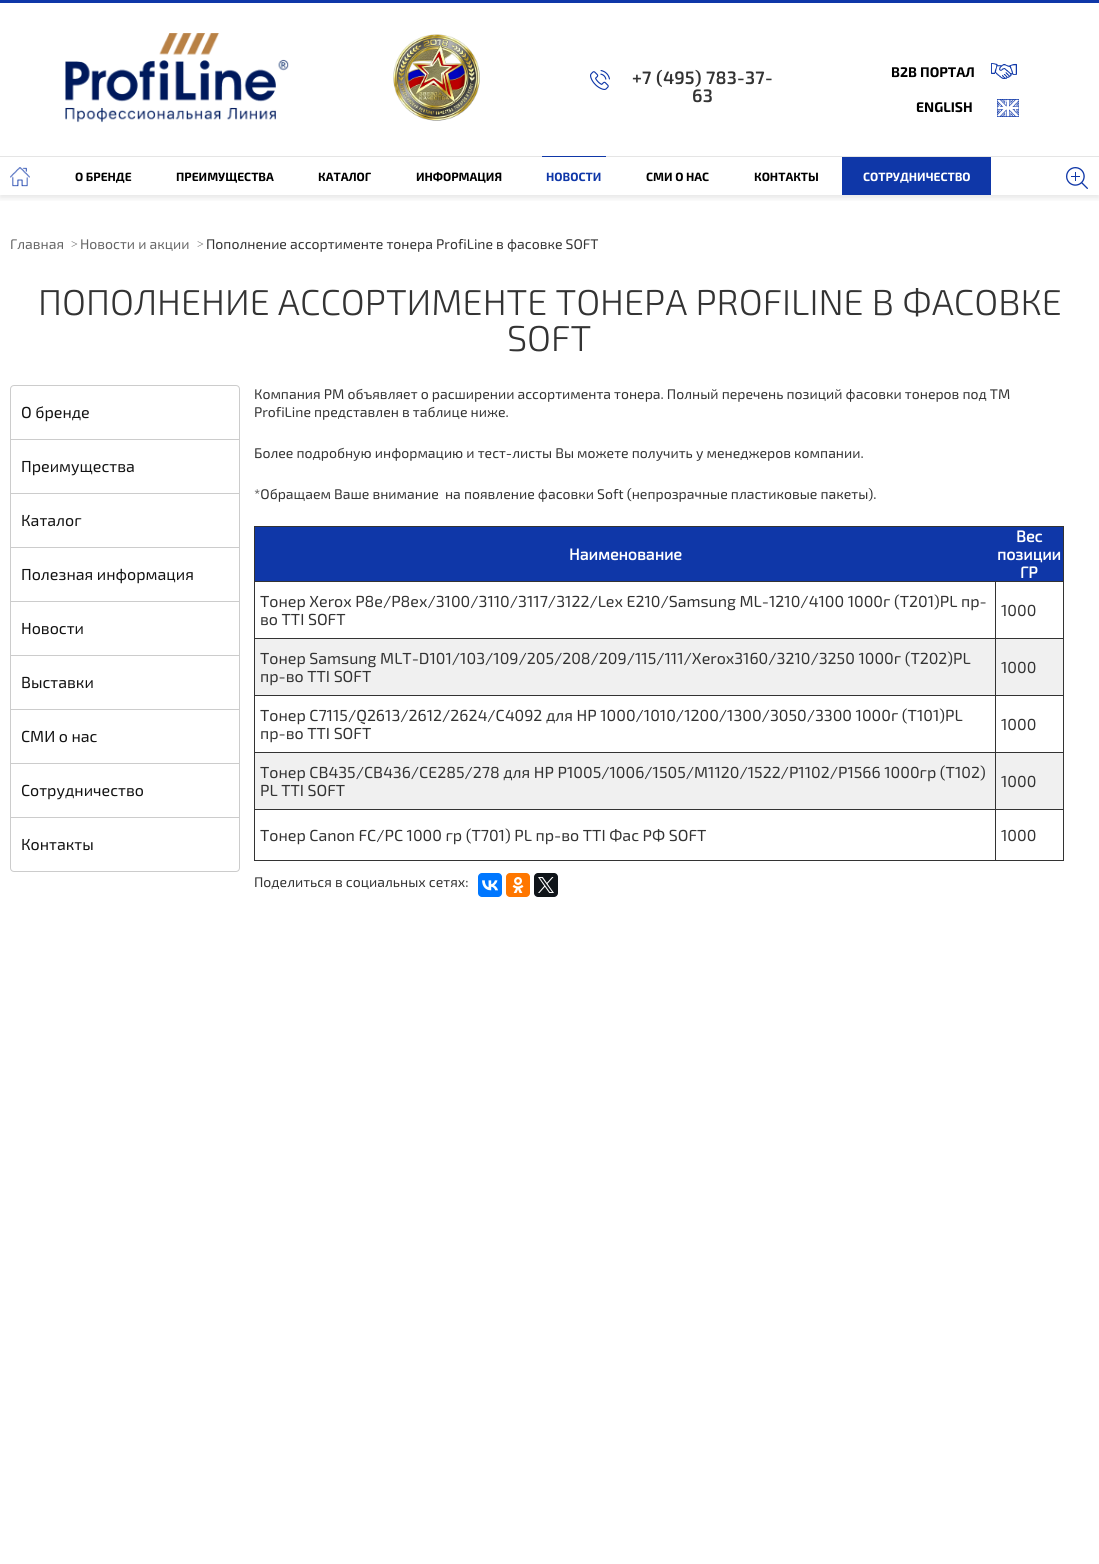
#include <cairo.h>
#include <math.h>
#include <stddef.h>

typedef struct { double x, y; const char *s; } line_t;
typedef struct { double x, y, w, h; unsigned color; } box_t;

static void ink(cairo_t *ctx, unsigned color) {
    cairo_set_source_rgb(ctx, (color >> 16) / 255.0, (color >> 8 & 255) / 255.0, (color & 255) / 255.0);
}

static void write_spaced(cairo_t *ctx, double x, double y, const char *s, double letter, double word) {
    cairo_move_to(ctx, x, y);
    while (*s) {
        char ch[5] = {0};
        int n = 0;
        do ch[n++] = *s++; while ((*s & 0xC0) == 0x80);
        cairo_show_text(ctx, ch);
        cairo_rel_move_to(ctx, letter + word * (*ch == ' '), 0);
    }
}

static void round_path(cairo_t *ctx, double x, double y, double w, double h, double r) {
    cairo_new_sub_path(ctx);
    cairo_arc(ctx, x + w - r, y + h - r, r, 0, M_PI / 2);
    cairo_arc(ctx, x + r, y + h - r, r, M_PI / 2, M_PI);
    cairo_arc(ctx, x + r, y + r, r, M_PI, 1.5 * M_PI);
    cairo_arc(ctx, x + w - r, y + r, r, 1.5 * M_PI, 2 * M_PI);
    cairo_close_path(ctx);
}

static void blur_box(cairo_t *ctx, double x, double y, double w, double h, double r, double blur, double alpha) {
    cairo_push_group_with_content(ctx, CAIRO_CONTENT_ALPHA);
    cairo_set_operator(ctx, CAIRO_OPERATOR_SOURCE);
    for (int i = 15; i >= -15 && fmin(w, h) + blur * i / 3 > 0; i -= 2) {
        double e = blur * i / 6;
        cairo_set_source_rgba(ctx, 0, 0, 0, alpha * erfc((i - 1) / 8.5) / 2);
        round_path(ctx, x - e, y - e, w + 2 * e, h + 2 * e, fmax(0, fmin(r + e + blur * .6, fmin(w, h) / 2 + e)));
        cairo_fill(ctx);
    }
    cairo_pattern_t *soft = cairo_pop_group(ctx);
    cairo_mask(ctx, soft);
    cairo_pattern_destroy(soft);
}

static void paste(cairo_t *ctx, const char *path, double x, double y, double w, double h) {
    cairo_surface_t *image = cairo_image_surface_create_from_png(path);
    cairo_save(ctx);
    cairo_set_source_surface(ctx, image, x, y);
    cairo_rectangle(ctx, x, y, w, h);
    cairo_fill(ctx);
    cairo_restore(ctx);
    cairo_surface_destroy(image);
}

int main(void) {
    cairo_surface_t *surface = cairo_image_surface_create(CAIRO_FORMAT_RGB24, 1099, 1564);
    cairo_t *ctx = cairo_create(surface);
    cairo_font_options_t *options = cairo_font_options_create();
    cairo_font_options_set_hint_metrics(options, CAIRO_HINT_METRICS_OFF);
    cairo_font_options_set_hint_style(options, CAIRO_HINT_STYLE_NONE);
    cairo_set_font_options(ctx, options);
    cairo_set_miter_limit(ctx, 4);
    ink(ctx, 0xFFFFFF);
    cairo_paint(ctx);
    cairo_save(ctx);
    cairo_rectangle(ctx, 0, 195, 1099, 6);
    cairo_clip(ctx);
    ink(ctx, 0x000000);
    blur_box(ctx, 0, 3, 1099, 195, 0, 3, 0.1);
    cairo_restore(ctx);
    ink(ctx, 0x0F37A8);
    cairo_rectangle(ctx, 0, 0, 1099, 3);
    cairo_fill(ctx);
    paste(ctx, "media/1.png", 65, 33, 224, 90);
    paste(ctx, "media/2.png", 393, 34, 87, 87);
    paste(ctx, "media/3.png", 590, 70, 20, 20);
    cairo_select_font_face(ctx, "Exo 2 SemiBold", CAIRO_FONT_SLANT_NORMAL, CAIRO_FONT_WEIGHT_NORMAL);
    cairo_set_font_size(ctx, 18);
    ink(ctx, 0x333333);
    write_spaced(ctx, 632, 84, "+7 (495) 783-37-", 0.25, 0);
    write_spaced(ctx, 692, 102, "63", 0.25, 0);
    cairo_select_font_face(ctx, "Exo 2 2", CAIRO_FONT_SLANT_NORMAL, CAIRO_FONT_WEIGHT_BOLD);
    cairo_set_font_size(ctx, 14);
    ink(ctx, 0x000000);
    cairo_move_to(ctx, 891, 77);
    cairo_show_text(ctx, "B2B ПОРТАЛ");
    paste(ctx, "media/4.png", 991, 63, 26, 16);
    cairo_move_to(ctx, 916, 112);
    cairo_show_text(ctx, "ENGLISH");
    paste(ctx, "media/5.png", 997, 99, 22, 18);
    ink(ctx, 0xE5E5E5);
    cairo_rectangle(ctx, 0, 156, 1099, 1);
    cairo_fill(ctx);
    paste(ctx, "media/6.png", 10, 167, 20, 20);
    cairo_set_font_size(ctx, 12);
    ink(ctx, 0x000000);
    {
        static const line_t items[] = {
            {75, 181, "О БРЕНДЕ"},
            {176, 181, "ПРЕИМУЩЕСТВА"},
            {318, 181, "КАТАЛОГ"},
            {416, 181, "ИНФОРМАЦИЯ"},
        };
        for (size_t i = 0; i < sizeof items / sizeof *items; i++) {
            cairo_move_to(ctx, items[i].x, items[i].y);
            cairo_show_text(ctx, items[i].s);
        }
    }
    ink(ctx, 0x0F37A8);
    cairo_rectangle(ctx, 542, 156, 64, 1);
    cairo_fill(ctx);
    cairo_move_to(ctx, 546, 181);
    cairo_show_text(ctx, "НОВОСТИ");
    ink(ctx, 0x000000);
    cairo_move_to(ctx, 646, 181);
    cairo_show_text(ctx, "СМИ О НАС");
    cairo_move_to(ctx, 754, 181);
    cairo_show_text(ctx, "КОНТАКТЫ");
    ink(ctx, 0x0F37A8);
    cairo_rectangle(ctx, 842, 157, 149, 38);
    cairo_fill(ctx);
    ink(ctx, 0xFFFFFF);
    cairo_move_to(ctx, 863, 181);
    cairo_show_text(ctx, "СОТРУДНИЧЕСТВО");
    paste(ctx, "media/7.png", 1066, 167, 22, 22);
    cairo_select_font_face(ctx, "Exo 2", CAIRO_FONT_SLANT_NORMAL, CAIRO_FONT_WEIGHT_NORMAL);
    cairo_set_font_size(ctx, 14);
    ink(ctx, 0x666666);
    cairo_move_to(ctx, 10, 249);
    cairo_show_text(ctx, "Главная");
    cairo_select_font_face(ctx, "Liberation Serif", CAIRO_FONT_SLANT_NORMAL, CAIRO_FONT_WEIGHT_NORMAL);
    cairo_set_font_size(ctx, 12);
    cairo_move_to(ctx, 71, 248);
    cairo_show_text(ctx, ">");
    cairo_select_font_face(ctx, "Exo 2", CAIRO_FONT_SLANT_NORMAL, CAIRO_FONT_WEIGHT_NORMAL);
    cairo_set_font_size(ctx, 14);
    cairo_move_to(ctx, 80, 249);
    cairo_show_text(ctx, "Новости и акции");
    cairo_select_font_face(ctx, "Liberation Serif", CAIRO_FONT_SLANT_NORMAL, CAIRO_FONT_WEIGHT_NORMAL);
    cairo_set_font_size(ctx, 12);
    cairo_move_to(ctx, 197, 248);
    cairo_show_text(ctx, ">");
    cairo_select_font_face(ctx, "Exo 2", CAIRO_FONT_SLANT_NORMAL, CAIRO_FONT_WEIGHT_NORMAL);
    cairo_set_font_size(ctx, 14);
    ink(ctx, 0x333333);
    cairo_move_to(ctx, 206, 249);
    cairo_show_text(ctx, "Пополнение ассортименте тонера ProfiLine в фасовке SOFT");
    cairo_select_font_face(ctx, "Exo 2 Light", CAIRO_FONT_SLANT_NORMAL, CAIRO_FONT_WEIGHT_NORMAL);
    cairo_set_font_size(ctx, 36);
    cairo_move_to(ctx, 38, 315);
    cairo_show_text(ctx, "ПОПОЛНЕНИЕ АССОРТИМЕНТЕ ТОНЕРА PROFILINE В ФАСОВКЕ");
    cairo_move_to(ctx, 507, 351);
    cairo_show_text(ctx, "SOFT");
    round_path(ctx, 10.5, 385.5, 229, 486, 3.5);
    ink(ctx, 0xCCCCCC);
    cairo_set_line_width(ctx, 1);
    cairo_stroke(ctx);
    cairo_select_font_face(ctx, "Exo 2", CAIRO_FONT_SLANT_NORMAL, CAIRO_FONT_WEIGHT_NORMAL);
    cairo_set_font_size(ctx, 16);
    ink(ctx, 0x121212);
    cairo_move_to(ctx, 21, 418);
    cairo_show_text(ctx, "О бренде");
    ink(ctx, 0xCCCCCC);
    cairo_rectangle(ctx, 11, 439, 228, 1);
    cairo_fill(ctx);
    ink(ctx, 0x121212);
    cairo_move_to(ctx, 21, 472);
    cairo_show_text(ctx, "Преимущества");
    ink(ctx, 0xCCCCCC);
    cairo_rectangle(ctx, 11, 493, 228, 1);
    cairo_fill(ctx);
    ink(ctx, 0x121212);
    cairo_move_to(ctx, 21, 526);
    cairo_show_text(ctx, "Каталог");
    ink(ctx, 0xCCCCCC);
    cairo_rectangle(ctx, 11, 547, 228, 1);
    cairo_fill(ctx);
    ink(ctx, 0x121212);
    cairo_move_to(ctx, 21, 580);
    cairo_show_text(ctx, "Полезная информация");
    ink(ctx, 0xCCCCCC);
    cairo_rectangle(ctx, 11, 601, 228, 1);
    cairo_fill(ctx);
    ink(ctx, 0x121212);
    cairo_move_to(ctx, 21, 634);
    cairo_show_text(ctx, "Новости");
    ink(ctx, 0xCCCCCC);
    cairo_rectangle(ctx, 11, 655, 228, 1);
    cairo_fill(ctx);
    ink(ctx, 0x121212);
    cairo_move_to(ctx, 21, 688);
    cairo_show_text(ctx, "Выставки");
    ink(ctx, 0xCCCCCC);
    cairo_rectangle(ctx, 11, 709, 228, 1);
    cairo_fill(ctx);
    ink(ctx, 0x121212);
    cairo_move_to(ctx, 21, 742);
    cairo_show_text(ctx, "СМИ о нас");
    ink(ctx, 0xCCCCCC);
    cairo_rectangle(ctx, 11, 763, 228, 1);
    cairo_fill(ctx);
    ink(ctx, 0x121212);
    cairo_move_to(ctx, 21, 796);
    cairo_show_text(ctx, "Сотрудничество");
    ink(ctx, 0xCCCCCC);
    cairo_rectangle(ctx, 11, 817, 228, 1);
    cairo_fill(ctx);
    ink(ctx, 0x121212);
    cairo_move_to(ctx, 21, 850);
    cairo_show_text(ctx, "Контакты");
    cairo_set_font_size(ctx, 14);
    ink(ctx, 0x333333);
    {
        static const line_t items[] = {
            {254, 399, "Компания РМ объявляет о расширении ассортимента тонера. Полный перечень позиций фасовки тонеров под ТМ"},
            {254, 417, "ProfiLine представлен в таблице ниже."},
            {254, 458, "Более подробную информацию и тест-листы Вы можете получить у менеджеров компании."},
            {254, 499, "*Обращаем Ваше внимание  на появление фасовки Soft (непрозрачные пластиковые пакеты)."},
        };
        for (size_t i = 0; i < sizeof items / sizeof *items; i++) {
            cairo_move_to(ctx, items[i].x, items[i].y);
            cairo_show_text(ctx, items[i].s);
        }
    }
    {
        static const box_t items[] = {
            {254, 526, 810, 1, 0x333333},
            {1063, 526, 1, 335, 0x333333},
            {254, 860, 810, 1, 0x333333},
            {254, 526, 1, 335, 0x333333},
            {255, 527, 808, 54, 0x0F37A8},
        };
        for (size_t i = 0; i < sizeof items / sizeof *items; i++) {
            ink(ctx, items[i].color);
            cairo_rectangle(ctx, items[i].x, items[i].y, items[i].w, items[i].h);
            cairo_fill(ctx);
        }
    }
    cairo_select_font_face(ctx, "Exo 2", CAIRO_FONT_SLANT_NORMAL, CAIRO_FONT_WEIGHT_BOLD);
    cairo_set_font_size(ctx, 16);
    ink(ctx, 0xFFFFFF);
    {
        static const line_t items[] = {
            {569, 560, "Наименование"},
            {1016, 542, "Вес"},
            {997, 560, "позиции"},
            {1020, 578, "ГР"},
        };
        for (size_t i = 0; i < sizeof items / sizeof *items; i++) {
            cairo_move_to(ctx, items[i].x, items[i].y);
            cairo_show_text(ctx, items[i].s);
        }
    }
    {
        static const box_t items[] = {
            {995, 581, 69, 1, 0x333333},
            {995, 638, 69, 1, 0x333333},
            {255, 639, 808, 56, 0xF0F0F0},
            {995, 695, 69, 1, 0x333333},
            {995, 752, 69, 1, 0x333333},
            {255, 753, 808, 56, 0xF0F0F0},
            {995, 809, 69, 1, 0x333333},
            {995, 809, 1, 52, 0x333333},
            {254, 809, 742, 1, 0x333333},
            {995, 752, 1, 58, 0x333333},
            {254, 752, 742, 1, 0x333333},
            {995, 695, 1, 58, 0x333333},
            {254, 695, 742, 1, 0x333333},
            {995, 638, 1, 58, 0x333333},
            {254, 638, 742, 1, 0x333333},
            {995, 581, 1, 58, 0x333333},
            {254, 581, 742, 1, 0x333333},
        };
        for (size_t i = 0; i < sizeof items / sizeof *items; i++) {
            ink(ctx, items[i].color);
            cairo_rectangle(ctx, items[i].x, items[i].y, items[i].w, items[i].h);
            cairo_fill(ctx);
        }
    }
    cairo_select_font_face(ctx, "Exo 2", CAIRO_FONT_SLANT_NORMAL, CAIRO_FONT_WEIGHT_NORMAL);
    {
        static const line_t items[] = {
            {260, 607, "Тонер Xerox P8e/P8ex/3100/3110/3117/3122/Lex E210/Samsung ML-1210/4100 1000г (T201)PL пр-"},
            {260, 625, "во TTI SOFT"},
            {1001, 616, "1000"},
            {260, 664, "Тонер Samsung MLT-D101/103/109/205/208/209/115/111/Xerox3160/3210/3250 1000г (T202)PL"},
            {260, 682, "пр-во TTI SOFT"},
            {1001, 673, "1000"},
            {260, 721, "Тонер C7115/Q2613/2612/2624/C4092 для HP 1000/1010/1200/1300/3050/3300 1000г (T101)PL"},
            {260, 739, "пр-во TTI SOFT"},
            {1001, 730, "1000"},
            {260, 778, "Тонер CB435/CB436/CE285/278 для HP P1005/1006/1505/M1120/1522/P1102/P1566 1000гр (T102)"},
            {260, 796, "PL TTI SOFT"},
            {1001, 787, "1000"},
            {260, 841, "Тонер Canon FC/PC 1000 гр (T701) PL пр-во TTI Фас РФ SOFT"},
            {1001, 841, "1000"},
        };
        for (size_t i = 0; i < sizeof items / sizeof *items; i++) {
            cairo_move_to(ctx, items[i].x, items[i].y);
            cairo_show_text(ctx, items[i].s);
        }
    }
    cairo_set_font_size(ctx, 14);
    cairo_move_to(ctx, 254, 887);
    cairo_show_text(ctx, "Поделиться в социальных сетях:");
    ink(ctx, 0x0077FF);
    round_path(ctx, 478, 873, 24, 24, 4);
    cairo_fill(ctx);
    paste(ctx, "media/8.png", 482, 880, 16, 11);
    ink(ctx, 0xFF7700);
    round_path(ctx, 506, 873, 24, 24, 4);
    cairo_fill(ctx);
    paste(ctx, "media/9.png", 512, 877, 12, 16);
    ink(ctx, 0x0F1419);
    round_path(ctx, 534, 873, 24, 24, 4);
    cairo_fill(ctx);
    paste(ctx, "media/10.png", 538, 877, 16, 16);
    cairo_surface_write_to_png(surface, "image.png");
    cairo_font_options_destroy(options);
    cairo_destroy(ctx);
    cairo_surface_destroy(surface);
    return 0;
}
